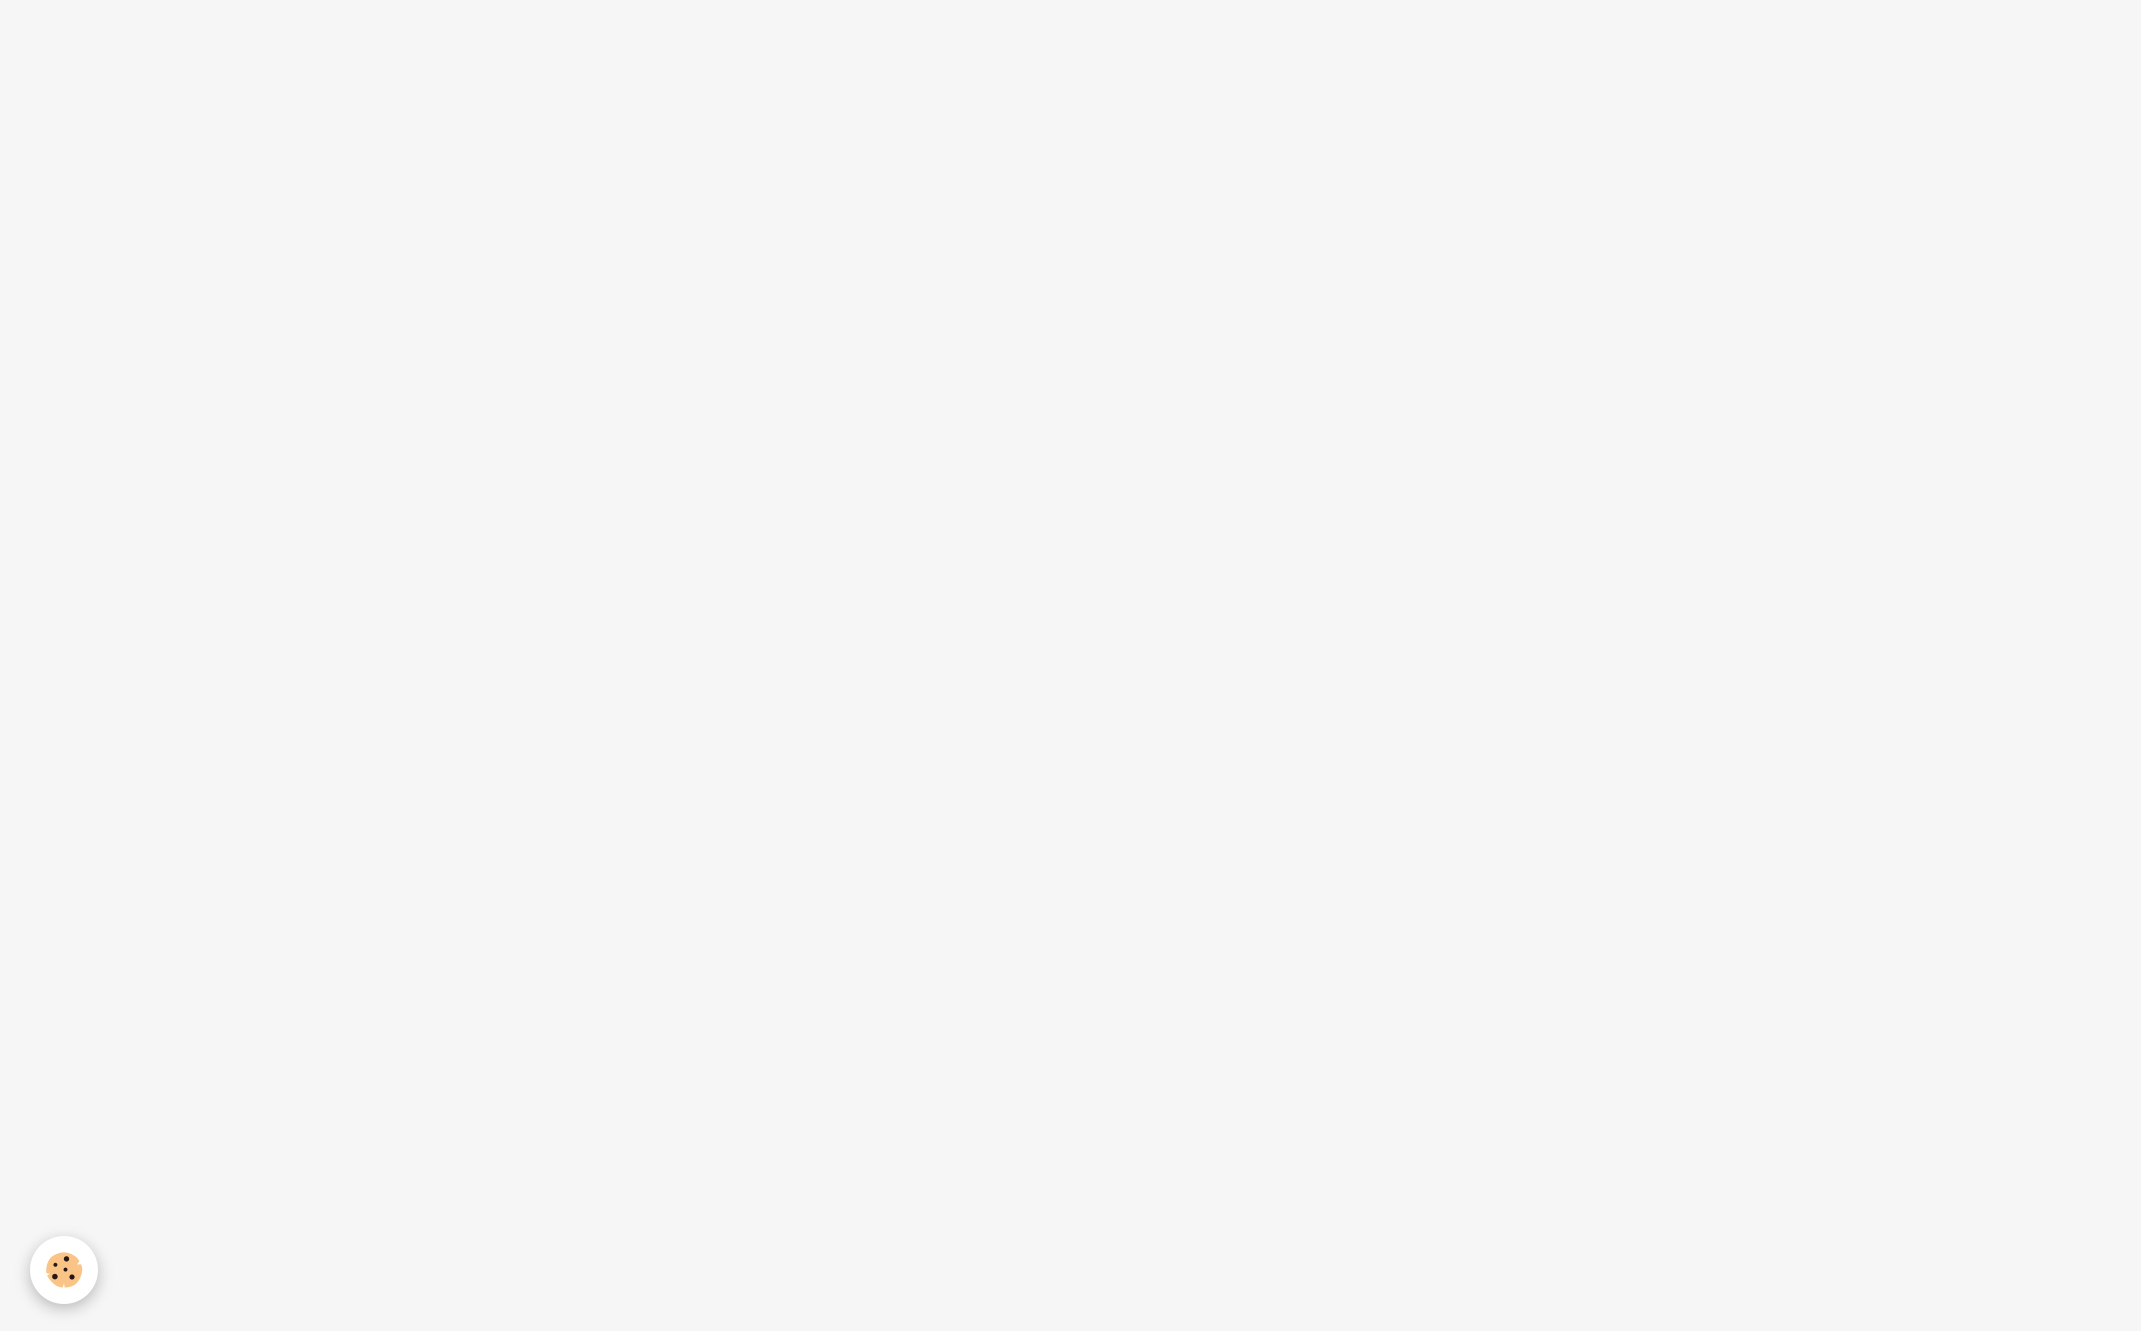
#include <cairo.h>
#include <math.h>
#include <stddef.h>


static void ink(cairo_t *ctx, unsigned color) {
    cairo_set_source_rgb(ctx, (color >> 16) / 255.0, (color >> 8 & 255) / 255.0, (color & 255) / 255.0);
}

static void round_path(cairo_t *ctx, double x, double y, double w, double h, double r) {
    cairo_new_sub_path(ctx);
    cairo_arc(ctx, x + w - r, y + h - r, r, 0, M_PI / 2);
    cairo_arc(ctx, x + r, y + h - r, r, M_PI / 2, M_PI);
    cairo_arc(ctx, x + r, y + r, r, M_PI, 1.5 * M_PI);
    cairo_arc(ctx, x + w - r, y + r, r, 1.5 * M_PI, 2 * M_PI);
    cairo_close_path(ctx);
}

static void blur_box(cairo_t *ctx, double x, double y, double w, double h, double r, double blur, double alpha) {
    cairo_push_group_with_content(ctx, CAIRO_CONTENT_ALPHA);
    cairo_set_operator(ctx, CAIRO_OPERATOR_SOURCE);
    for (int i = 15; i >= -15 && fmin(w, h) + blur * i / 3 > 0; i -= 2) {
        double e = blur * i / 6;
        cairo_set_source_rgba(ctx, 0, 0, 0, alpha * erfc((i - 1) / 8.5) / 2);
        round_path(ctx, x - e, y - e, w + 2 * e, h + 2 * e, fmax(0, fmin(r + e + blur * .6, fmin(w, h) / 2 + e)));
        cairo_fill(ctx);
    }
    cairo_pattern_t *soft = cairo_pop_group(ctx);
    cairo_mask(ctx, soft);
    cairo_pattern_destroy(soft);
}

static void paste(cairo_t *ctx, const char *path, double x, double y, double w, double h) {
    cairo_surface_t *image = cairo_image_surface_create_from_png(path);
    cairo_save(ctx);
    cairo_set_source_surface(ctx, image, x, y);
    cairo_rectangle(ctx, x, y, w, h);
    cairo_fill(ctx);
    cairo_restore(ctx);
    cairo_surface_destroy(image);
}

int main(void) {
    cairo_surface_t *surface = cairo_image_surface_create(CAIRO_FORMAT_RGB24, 2141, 1331);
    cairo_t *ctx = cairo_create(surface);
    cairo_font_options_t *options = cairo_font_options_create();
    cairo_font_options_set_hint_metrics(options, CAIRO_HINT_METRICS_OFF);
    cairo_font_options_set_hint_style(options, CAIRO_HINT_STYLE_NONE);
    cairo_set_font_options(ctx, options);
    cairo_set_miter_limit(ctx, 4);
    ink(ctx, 0xF6F6F6);
    cairo_paint(ctx);
    ink(ctx, 0x000000);
    blur_box(ctx, 30, 1241, 68, 67, 33.5, 7.5, 0.24);
    ink(ctx, 0xFFFFFF);
    cairo_arc(ctx, 64, 1270, 34, 0, 2 * M_PI);
    cairo_fill(ctx);
    paste(ctx, "media/1.png", 46, 1252, 37, 36);
    cairo_surface_write_to_png(surface, "image.png");
    cairo_font_options_destroy(options);
    cairo_destroy(ctx);
    cairo_surface_destroy(surface);
    return 0;
}
